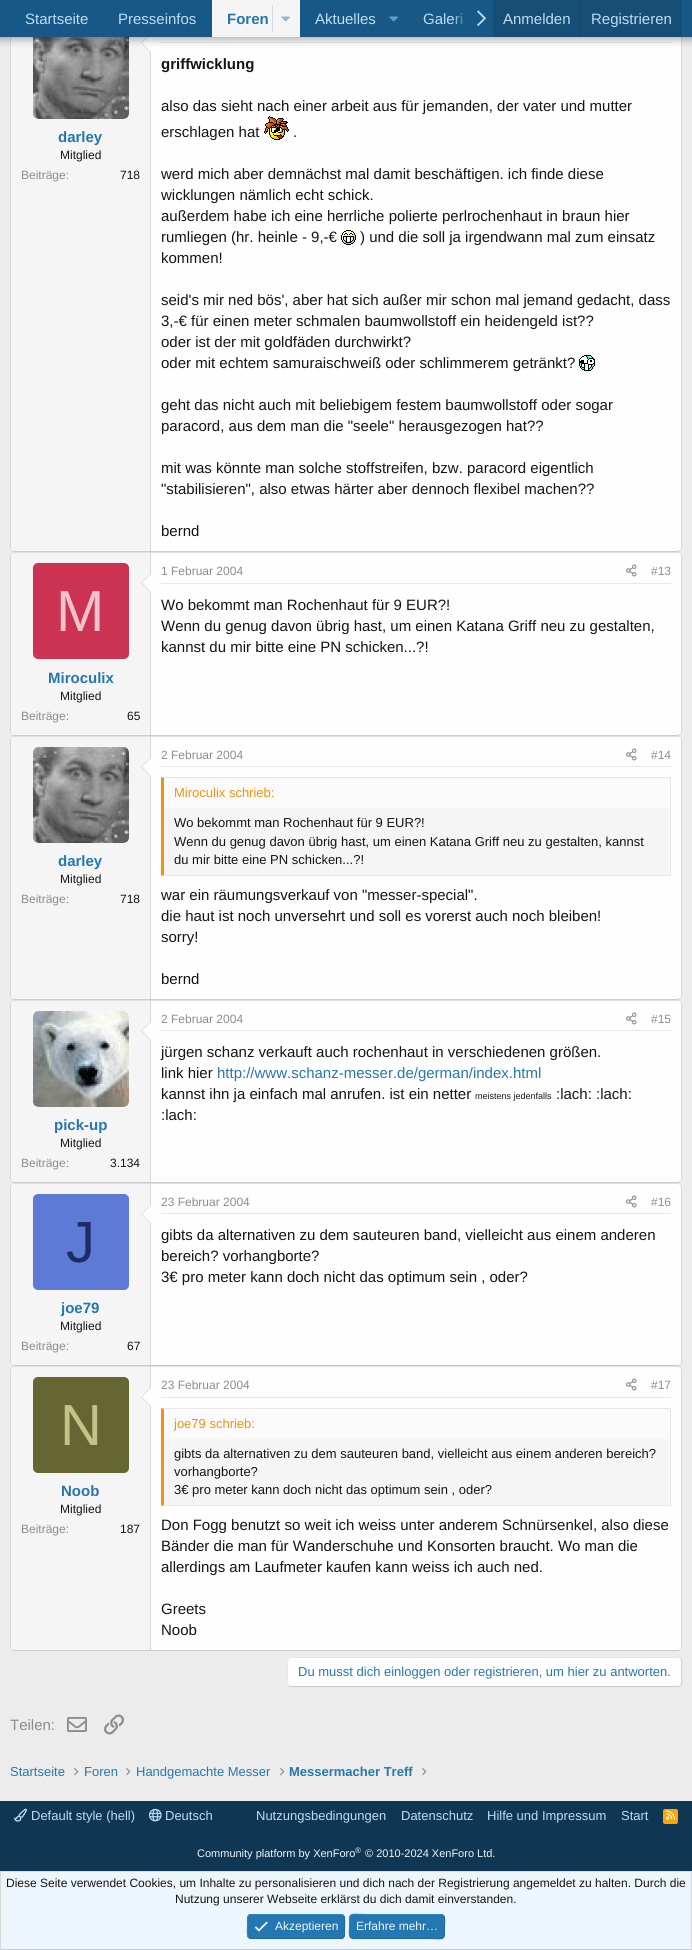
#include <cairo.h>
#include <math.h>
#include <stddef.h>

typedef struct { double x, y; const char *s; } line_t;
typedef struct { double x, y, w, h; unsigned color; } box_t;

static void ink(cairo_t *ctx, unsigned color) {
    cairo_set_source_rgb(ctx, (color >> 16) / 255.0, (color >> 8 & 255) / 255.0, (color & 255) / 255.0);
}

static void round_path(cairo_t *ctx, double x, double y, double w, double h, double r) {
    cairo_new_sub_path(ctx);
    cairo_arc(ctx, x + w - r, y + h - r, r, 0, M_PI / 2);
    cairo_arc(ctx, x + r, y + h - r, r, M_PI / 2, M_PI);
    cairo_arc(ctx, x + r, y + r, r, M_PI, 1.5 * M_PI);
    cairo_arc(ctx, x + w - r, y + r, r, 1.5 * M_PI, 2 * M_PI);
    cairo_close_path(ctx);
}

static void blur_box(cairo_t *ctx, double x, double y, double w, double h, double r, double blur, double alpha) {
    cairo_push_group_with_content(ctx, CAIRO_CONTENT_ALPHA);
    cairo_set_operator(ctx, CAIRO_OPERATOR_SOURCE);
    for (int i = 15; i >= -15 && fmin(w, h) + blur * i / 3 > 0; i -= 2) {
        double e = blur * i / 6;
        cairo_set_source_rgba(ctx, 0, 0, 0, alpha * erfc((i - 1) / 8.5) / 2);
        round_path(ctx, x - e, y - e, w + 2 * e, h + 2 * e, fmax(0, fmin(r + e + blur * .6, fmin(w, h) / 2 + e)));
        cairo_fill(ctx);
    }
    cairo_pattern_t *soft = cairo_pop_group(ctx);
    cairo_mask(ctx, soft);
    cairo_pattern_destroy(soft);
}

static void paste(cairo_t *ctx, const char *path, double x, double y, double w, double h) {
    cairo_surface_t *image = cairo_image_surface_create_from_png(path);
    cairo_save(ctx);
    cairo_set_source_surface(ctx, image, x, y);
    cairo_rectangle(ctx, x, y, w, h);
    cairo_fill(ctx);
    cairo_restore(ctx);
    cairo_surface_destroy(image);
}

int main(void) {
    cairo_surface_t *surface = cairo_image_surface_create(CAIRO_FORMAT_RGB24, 692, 1950);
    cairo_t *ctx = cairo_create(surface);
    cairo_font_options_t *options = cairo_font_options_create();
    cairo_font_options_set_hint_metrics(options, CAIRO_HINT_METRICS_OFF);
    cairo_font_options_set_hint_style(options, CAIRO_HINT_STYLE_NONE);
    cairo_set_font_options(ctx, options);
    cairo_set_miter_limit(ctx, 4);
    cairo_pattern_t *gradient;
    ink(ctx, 0xECECEC);
    cairo_paint(ctx);
    ink(ctx, 0xFEFEFE);
    round_path(ctx, 10, 12, 672, 540, 4);
    cairo_fill(ctx);
    cairo_new_path(ctx);
    cairo_move_to(ctx, 680.5, 13.5);
    cairo_curve_to(ctx, 681, 14, 681.5, 15, 681.5, 16);
    cairo_line_to(ctx, 681.5, 548);
    cairo_curve_to(ctx, 681.5, 549, 681, 550, 680.5, 550.5);
    ink(ctx, 0xD8D8D8);
    cairo_set_line_width(ctx, 1);
    cairo_stroke(ctx);
    cairo_new_path(ctx);
    cairo_move_to(ctx, 680.5, 550.5);
    cairo_line_to(ctx, 678, 551.5);
    cairo_line_to(ctx, 14, 551.5);
    cairo_line_to(ctx, 11.5, 550.5);
    ink(ctx, 0xCBCBCB);
    cairo_stroke(ctx);
    cairo_new_path(ctx);
    cairo_move_to(ctx, 11.5, 550.5);
    cairo_curve_to(ctx, 11, 550, 10.5, 549, 10.5, 548);
    cairo_line_to(ctx, 10.5, 16);
    cairo_curve_to(ctx, 10.5, 15, 11, 14, 11.5, 13.5);
    ink(ctx, 0xD8D8D8);
    cairo_stroke(ctx);
    ink(ctx, 0xF5F5F5);
    cairo_new_path(ctx);
    cairo_move_to(ctx, 14, 13);
    cairo_line_to(ctx, 151, 13);
    cairo_line_to(ctx, 151, 551);
    cairo_line_to(ctx, 14, 551);
    cairo_curve_to(ctx, 12.5, 551, 11, 549.5, 11, 548);
    cairo_line_to(ctx, 11, 16);
    cairo_curve_to(ctx, 11, 14.5, 12.5, 13, 14, 13);
    cairo_close_path(ctx);
    cairo_fill(ctx);
    ink(ctx, 0xD8D8D8);
    cairo_rectangle(ctx, 150, 52, 1, 499);
    cairo_fill(ctx);
    ink(ctx, 0xFEFEFE);
    round_path(ctx, 33, 23, 96, 96, 5);
    cairo_fill(ctx);
    paste(ctx, "media/4.png", 33, 37, 96, 82);
    ink(ctx, 0xD8D8D8);
    cairo_new_path(ctx);
    cairo_move_to(ctx, 151, 33);
    cairo_line_to(ctx, 151, 53);
    cairo_line_to(ctx, 141, 43);
    cairo_close_path(ctx);
    cairo_fill(ctx);
    ink(ctx, 0xFEFEFE);
    cairo_new_path(ctx);
    cairo_move_to(ctx, 151, 34);
    cairo_line_to(ctx, 151, 52);
    cairo_line_to(ctx, 142, 43);
    cairo_close_path(ctx);
    cairo_fill(ctx);
    ink(ctx, 0xE7E7E7);
    cairo_rectangle(ctx, 161, 42, 510, 1);
    cairo_fill(ctx);
    ink(ctx, 0x000000);
    blur_box(ctx, -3, -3, 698, 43, 0, 4, 0.3);
    ink(ctx, 0x185886);
    cairo_rectangle(ctx, 0, 0, 692, 37);
    cairo_fill(ctx);
    cairo_select_font_face(ctx, "Liberation Sans", CAIRO_FONT_SLANT_NORMAL, CAIRO_FONT_WEIGHT_NORMAL);
    cairo_set_font_size(ctx, 15);
    ink(ctx, 0xBCDEF5);
    cairo_move_to(ctx, 25, 24);
    cairo_show_text(ctx, "Startseite");
    cairo_move_to(ctx, 118, 24);
    cairo_show_text(ctx, "Presseinfos");
    ink(ctx, 0xF5F5F5);
    cairo_rectangle(ctx, 212, 0, 88, 37);
    cairo_fill(ctx);
    cairo_select_font_face(ctx, "Liberation Sans", CAIRO_FONT_SLANT_NORMAL, CAIRO_FONT_WEIGHT_BOLD);
    ink(ctx, 0x2577B1);
    cairo_move_to(ctx, 227, 24);
    cairo_show_text(ctx, "Foren");
    ink(ctx, 0xD1DFE9);
    cairo_rectangle(ctx, 272, 5, 1, 27);
    cairo_fill(ctx);
    paste(ctx, "media/1.png", 281, 16, 9, 6);
    cairo_select_font_face(ctx, "Liberation Sans", CAIRO_FONT_SLANT_NORMAL, CAIRO_FONT_WEIGHT_NORMAL);
    ink(ctx, 0xBCDEF5);
    cairo_move_to(ctx, 315, 24);
    cairo_show_text(ctx, "Aktuelles");
    paste(ctx, "media/2.png", 389, 16, 9, 6);
    cairo_move_to(ctx, 423, 24);
    cairo_show_text(ctx, "Galeri");
    gradient = cairo_pattern_create_linear(453, 19, 493, 19);
    cairo_pattern_add_color_stop_rgba(gradient, 0, 0.094, 0.345, 0.525, 0);
    cairo_pattern_add_color_stop_rgba(gradient, 0.33, 0.094, 0.345, 0.525, 1);
    cairo_set_source(ctx, gradient);
    cairo_pattern_destroy(gradient);
    cairo_rectangle(ctx, 453, 13, 9, 11);
    cairo_fill(ctx);
    paste(ctx, "media/3.png", 477, 10, 9, 16);
    ink(ctx, 0x174E75);
    cairo_rectangle(ctx, 493, 0, 189, 37);
    cairo_fill(ctx);
    ink(ctx, 0xBCDEF5);
    cairo_move_to(ctx, 503, 24);
    cairo_show_text(ctx, "Anmelden");
    ink(ctx, 0x174566);
    cairo_rectangle(ctx, 580, 0, 1, 37);
    cairo_fill(ctx);
    ink(ctx, 0xBCDEF5);
    cairo_move_to(ctx, 591, 24);
    cairo_show_text(ctx, "Registrieren");
    cairo_select_font_face(ctx, "Liberation Sans", CAIRO_FONT_SLANT_NORMAL, CAIRO_FONT_WEIGHT_BOLD);
    ink(ctx, 0x2577B1);
    cairo_move_to(ctx, 58, 142);
    cairo_show_text(ctx, "darley");
    cairo_select_font_face(ctx, "Liberation Sans", CAIRO_FONT_SLANT_NORMAL, CAIRO_FONT_WEIGHT_NORMAL);
    cairo_set_font_size(ctx, 12);
    ink(ctx, 0x141414);
    cairo_move_to(ctx, 60, 159);
    cairo_show_text(ctx, "Mitglied");
    ink(ctx, 0x8C8C8C);
    cairo_move_to(ctx, 21, 179);
    cairo_show_text(ctx, "Beiträge:");
    ink(ctx, 0x141414);
    cairo_move_to(ctx, 120, 179);
    cairo_show_text(ctx, "718");
    cairo_select_font_face(ctx, "Liberation Sans", CAIRO_FONT_SLANT_NORMAL, CAIRO_FONT_WEIGHT_BOLD);
    cairo_set_font_size(ctx, 15);
    cairo_move_to(ctx, 161, 69);
    cairo_show_text(ctx, "griffwicklung");
    cairo_select_font_face(ctx, "Liberation Sans", CAIRO_FONT_SLANT_NORMAL, CAIRO_FONT_WEIGHT_NORMAL);
    cairo_move_to(ctx, 161, 111);
    cairo_show_text(ctx, "also das sieht nach einer arbeit aus für jemanden, der vater und mutter");
    cairo_move_to(ctx, 161, 137);
    cairo_show_text(ctx, "erschlagen hat");
    paste(ctx, "media/5.png", 264, 116, 25, 24);
    {
        static const line_t items[] = {
            {293, 137, "."},
            {161, 179, "werd mich aber demnächst mal damit beschäftigen. ich finde diese"},
            {161, 200, "wicklungen nämlich echt schick."},
            {161, 221, "außerdem habe ich eine herrliche polierte perlrochenhaut in braun hier"},
            {161, 242, "rumliegen (hr. heinle - 9,-€"},
        };
        for (size_t i = 0; i < sizeof items / sizeof *items; i++) {
            cairo_move_to(ctx, items[i].x, items[i].y);
            cairo_show_text(ctx, items[i].s);
        }
    }
    paste(ctx, "media/6.png", 341, 230, 15, 15);
    {
        static const line_t items[] = {
            {360, 242, ") und die soll ja irgendwann mal zum einsatz"},
            {161, 263, "kommen!"},
            {161, 305, "seid's mir ned bös', aber hat sich außer mir schon mal jemand gedacht, dass"},
            {161, 326, "3,-€ für einen meter schmalen baumwollstoff ein heidengeld ist?\077"},
            {161, 347, "oder ist der mit goldfäden durchwirkt?"},
            {161, 368, "oder mit echtem samuraischweiß oder schlimmerem getränkt?"},
        };
        for (size_t i = 0; i < sizeof items / sizeof *items; i++) {
            cairo_move_to(ctx, items[i].x, items[i].y);
            cairo_show_text(ctx, items[i].s);
        }
    }
    paste(ctx, "media/7.png", 579, 355, 16, 16);
    {
        static const line_t items[] = {
            {161, 410, "geht das nicht auch mit beliebigem festem baumwollstoff oder sogar"},
            {161, 431, "paracord, aus dem man die \"seele\" herausgezogen hat?\077"},
            {161, 473, "mit was könnte man solche stoffstreifen, bzw. paracord eigentlich"},
            {161, 494, "\"stabilisieren\", also etwas härter aber dennoch flexibel machen?\077"},
            {161, 536, "bernd"},
        };
        for (size_t i = 0; i < sizeof items / sizeof *items; i++) {
            cairo_move_to(ctx, items[i].x, items[i].y);
            cairo_show_text(ctx, items[i].s);
        }
    }
    ink(ctx, 0xFEFEFE);
    round_path(ctx, 10, 552, 672, 184, 4);
    cairo_fill(ctx);
    cairo_new_path(ctx);
    cairo_move_to(ctx, 11.5, 553.5);
    cairo_line_to(ctx, 14, 552.5);
    cairo_line_to(ctx, 678, 552.5);
    cairo_line_to(ctx, 680.5, 553.5);
    ink(ctx, 0xDFDFDF);
    cairo_stroke(ctx);
    cairo_new_path(ctx);
    cairo_move_to(ctx, 680.5, 553.5);
    cairo_line_to(ctx, 681.5, 555.5);
    cairo_line_to(ctx, 681.5, 702.5);
    cairo_line_to(ctx, 681.5, 732);
    cairo_line_to(ctx, 680.5, 734.5);
    ink(ctx, 0xD8D8D8);
    cairo_stroke(ctx);
    cairo_new_path(ctx);
    cairo_move_to(ctx, 680.5, 734.5);
    cairo_line_to(ctx, 678, 735.5);
    cairo_line_to(ctx, 14, 735.5);
    cairo_line_to(ctx, 11.5, 734.5);
    ink(ctx, 0xCBCBCB);
    cairo_stroke(ctx);
    cairo_new_path(ctx);
    cairo_move_to(ctx, 11.5, 734.5);
    cairo_line_to(ctx, 10.5, 732.5);
    cairo_line_to(ctx, 10.5, 585.5);
    cairo_line_to(ctx, 10.5, 556);
    cairo_line_to(ctx, 11.5, 553.5);
    ink(ctx, 0xD8D8D8);
    cairo_stroke(ctx);
    ink(ctx, 0xF5F5F5);
    cairo_new_path(ctx);
    cairo_move_to(ctx, 14, 553);
    cairo_line_to(ctx, 151, 553);
    cairo_line_to(ctx, 151, 735);
    cairo_line_to(ctx, 14, 735);
    cairo_curve_to(ctx, 12.5, 735, 11, 733.5, 11, 732);
    cairo_line_to(ctx, 11, 556);
    cairo_curve_to(ctx, 11, 554.5, 12.5, 553, 14, 553);
    cairo_close_path(ctx);
    cairo_fill(ctx);
    ink(ctx, 0xD8D8D8);
    cairo_rectangle(ctx, 150, 553, 1, 182);
    cairo_fill(ctx);
    cairo_new_path(ctx);
    cairo_move_to(ctx, 151, 573);
    cairo_line_to(ctx, 151, 593);
    cairo_line_to(ctx, 141, 583);
    cairo_close_path(ctx);
    cairo_fill(ctx);
    ink(ctx, 0xFEFEFE);
    cairo_new_path(ctx);
    cairo_move_to(ctx, 151, 574);
    cairo_line_to(ctx, 151, 592);
    cairo_line_to(ctx, 142, 583);
    cairo_close_path(ctx);
    cairo_fill(ctx);
    ink(ctx, 0xCC3352);
    round_path(ctx, 33, 563, 96, 96, 5);
    cairo_fill(ctx);
    cairo_set_font_size(ctx, 58);
    ink(ctx, 0xF0C2CB);
    cairo_move_to(ctx, 56, 631);
    cairo_show_text(ctx, "M");
    cairo_select_font_face(ctx, "Liberation Sans", CAIRO_FONT_SLANT_NORMAL, CAIRO_FONT_WEIGHT_BOLD);
    cairo_set_font_size(ctx, 15);
    ink(ctx, 0x2577B1);
    cairo_move_to(ctx, 48, 683);
    cairo_show_text(ctx, "Miroculix");
    cairo_select_font_face(ctx, "Liberation Sans", CAIRO_FONT_SLANT_NORMAL, CAIRO_FONT_WEIGHT_NORMAL);
    cairo_set_font_size(ctx, 12);
    ink(ctx, 0x141414);
    cairo_move_to(ctx, 60, 700);
    cairo_show_text(ctx, "Mitglied");
    ink(ctx, 0x8C8C8C);
    cairo_move_to(ctx, 21, 720);
    cairo_show_text(ctx, "Beiträge:");
    ink(ctx, 0x141414);
    cairo_move_to(ctx, 127, 720);
    cairo_show_text(ctx, "65");
    ink(ctx, 0xE7E7E7);
    cairo_rectangle(ctx, 161, 583, 510, 1);
    cairo_fill(ctx);
    ink(ctx, 0x8C8C8C);
    cairo_move_to(ctx, 161, 575);
    cairo_show_text(ctx, "1 Februar 2004");
    paste(ctx, "media/8.png", 626, 564, 11, 13);
    cairo_move_to(ctx, 651, 575);
    cairo_show_text(ctx, "#13");
    cairo_set_font_size(ctx, 15);
    ink(ctx, 0x141414);
    {
        static const line_t items[] = {
            {161, 610, "Wo bekommt man Rochenhaut für 9 EUR?!"},
            {161, 631, "Wenn du genug davon übrig hast, um einen Katana Griff neu zu gestalten,"},
            {161, 652, "kannst du mir bitte eine PN schicken...?!"},
        };
        for (size_t i = 0; i < sizeof items / sizeof *items; i++) {
            cairo_move_to(ctx, items[i].x, items[i].y);
            cairo_show_text(ctx, items[i].s);
        }
    }
    ink(ctx, 0xFEFEFE);
    round_path(ctx, 10, 736, 672, 264, 4);
    cairo_fill(ctx);
    cairo_new_path(ctx);
    cairo_move_to(ctx, 11.5, 737.5);
    cairo_line_to(ctx, 14, 736.5);
    cairo_line_to(ctx, 678, 736.5);
    cairo_line_to(ctx, 680.5, 737.5);
    ink(ctx, 0xDFDFDF);
    cairo_stroke(ctx);
    cairo_new_path(ctx);
    cairo_move_to(ctx, 680.5, 737.5);
    cairo_curve_to(ctx, 681, 738, 681.5, 739, 681.5, 740);
    cairo_line_to(ctx, 681.5, 996);
    cairo_curve_to(ctx, 681.5, 997, 681, 998, 680.5, 998.5);
    ink(ctx, 0xD8D8D8);
    cairo_stroke(ctx);
    cairo_new_path(ctx);
    cairo_move_to(ctx, 680.5, 998.5);
    cairo_line_to(ctx, 678, 999.5);
    cairo_line_to(ctx, 14, 999.5);
    cairo_line_to(ctx, 11.5, 998.5);
    ink(ctx, 0xCBCBCB);
    cairo_stroke(ctx);
    cairo_new_path(ctx);
    cairo_move_to(ctx, 11.5, 998.5);
    cairo_curve_to(ctx, 11, 998, 10.5, 997, 10.5, 996);
    cairo_line_to(ctx, 10.5, 740);
    cairo_curve_to(ctx, 10.5, 739, 11, 738, 11.5, 737.5);
    ink(ctx, 0xD8D8D8);
    cairo_stroke(ctx);
    ink(ctx, 0xF5F5F5);
    cairo_new_path(ctx);
    cairo_move_to(ctx, 14, 737);
    cairo_line_to(ctx, 151, 737);
    cairo_line_to(ctx, 151, 999);
    cairo_line_to(ctx, 14, 999);
    cairo_curve_to(ctx, 12.5, 999, 11, 997.5, 11, 996);
    cairo_line_to(ctx, 11, 740);
    cairo_curve_to(ctx, 11, 738.5, 12.5, 737, 14, 737);
    cairo_close_path(ctx);
    cairo_fill(ctx);
    ink(ctx, 0xD8D8D8);
    cairo_rectangle(ctx, 150, 737, 1, 262);
    cairo_fill(ctx);
    ink(ctx, 0xFEFEFE);
    round_path(ctx, 33, 747, 96, 96, 5);
    cairo_fill(ctx);
    paste(ctx, "media/9.png", 33, 747, 96, 96);
    ink(ctx, 0xD8D8D8);
    cairo_new_path(ctx);
    cairo_move_to(ctx, 151, 757);
    cairo_line_to(ctx, 151, 777);
    cairo_line_to(ctx, 141, 767);
    cairo_close_path(ctx);
    cairo_fill(ctx);
    ink(ctx, 0xFEFEFE);
    cairo_new_path(ctx);
    cairo_move_to(ctx, 151, 758);
    cairo_line_to(ctx, 151, 776);
    cairo_line_to(ctx, 142, 767);
    cairo_close_path(ctx);
    cairo_fill(ctx);
    cairo_select_font_face(ctx, "Liberation Sans", CAIRO_FONT_SLANT_NORMAL, CAIRO_FONT_WEIGHT_BOLD);
    ink(ctx, 0x2577B1);
    cairo_move_to(ctx, 58, 866);
    cairo_show_text(ctx, "darley");
    cairo_select_font_face(ctx, "Liberation Sans", CAIRO_FONT_SLANT_NORMAL, CAIRO_FONT_WEIGHT_NORMAL);
    cairo_set_font_size(ctx, 12);
    ink(ctx, 0x141414);
    cairo_move_to(ctx, 60, 883);
    cairo_show_text(ctx, "Mitglied");
    ink(ctx, 0x8C8C8C);
    cairo_move_to(ctx, 21, 903);
    cairo_show_text(ctx, "Beiträge:");
    ink(ctx, 0x141414);
    cairo_move_to(ctx, 120, 903);
    cairo_show_text(ctx, "718");
    ink(ctx, 0xE7E7E7);
    cairo_rectangle(ctx, 161, 766, 510, 1);
    cairo_fill(ctx);
    ink(ctx, 0x8C8C8C);
    cairo_move_to(ctx, 161, 759);
    cairo_show_text(ctx, "2 Februar 2004");
    paste(ctx, "media/8.png", 626, 748, 11, 13);
    cairo_move_to(ctx, 651, 759);
    cairo_show_text(ctx, "#14");
    ink(ctx, 0xF5F5F5);
    cairo_rectangle(ctx, 164, 808, 506, 67);
    cairo_fill(ctx);
    ink(ctx, 0xE7E7E7);
    cairo_new_path(ctx);
    cairo_move_to(ctx, 161, 777);
    cairo_line_to(ctx, 671, 777);
    cairo_line_to(ctx, 670, 778);
    cairo_line_to(ctx, 164, 778);
    cairo_close_path(ctx);
    cairo_fill(ctx);
    cairo_rectangle(ctx, 670, 777, 1, 99);
    cairo_fill(ctx);
    cairo_new_path(ctx);
    cairo_move_to(ctx, 671, 876);
    cairo_line_to(ctx, 161, 876);
    cairo_line_to(ctx, 164, 875);
    cairo_line_to(ctx, 670, 875);
    cairo_close_path(ctx);
    cairo_fill(ctx);
    ink(ctx, 0xF2930D);
    cairo_new_path(ctx);
    cairo_move_to(ctx, 161, 876);
    cairo_line_to(ctx, 161, 777);
    cairo_line_to(ctx, 164, 778);
    cairo_line_to(ctx, 164, 875);
    cairo_close_path(ctx);
    cairo_fill(ctx);
    ink(ctx, 0xFAFAFA);
    cairo_rectangle(ctx, 164, 778, 506, 30);
    cairo_fill(ctx);
    cairo_set_font_size(ctx, 13);
    ink(ctx, 0xF2930D);
    cairo_move_to(ctx, 174, 797);
    cairo_show_text(ctx, "Miroculix schrieb:");
    ink(ctx, 0x141414);
    {
        static const line_t items[] = {
            {174, 827, "Wo bekommt man Rochenhaut für 9 EUR?!"},
            {174, 846, "Wenn du genug davon übrig hast, um einen Katana Griff neu zu gestalten, kannst"},
            {174, 864, "du mir bitte eine PN schicken...?!"},
        };
        for (size_t i = 0; i < sizeof items / sizeof *items; i++) {
            cairo_move_to(ctx, items[i].x, items[i].y);
            cairo_show_text(ctx, items[i].s);
        }
    }
    cairo_set_font_size(ctx, 15);
    {
        static const line_t items[] = {
            {161, 900, "war ein räumungsverkauf von \"messer-special\"."},
            {161, 921, "die haut ist noch unversehrt und soll es vorerst auch noch bleiben!"},
            {161, 942, "sorry!"},
            {161, 984, "bernd"},
        };
        for (size_t i = 0; i < sizeof items / sizeof *items; i++) {
            cairo_move_to(ctx, items[i].x, items[i].y);
            cairo_show_text(ctx, items[i].s);
        }
    }
    ink(ctx, 0xFEFEFE);
    round_path(ctx, 10, 1000, 672, 183, 4);
    cairo_fill(ctx);
    cairo_new_path(ctx);
    cairo_move_to(ctx, 11.5, 1001.5);
    cairo_line_to(ctx, 14, 1000.5);
    cairo_line_to(ctx, 678, 1000.5);
    cairo_line_to(ctx, 680.5, 1001.5);
    ink(ctx, 0xDFDFDF);
    cairo_stroke(ctx);
    cairo_new_path(ctx);
    cairo_move_to(ctx, 680.5, 1001.5);
    cairo_line_to(ctx, 681.5, 1003.5);
    cairo_line_to(ctx, 681.5, 1150);
    cairo_line_to(ctx, 681.5, 1179);
    cairo_line_to(ctx, 680.5, 1181.5);
    ink(ctx, 0xD8D8D8);
    cairo_stroke(ctx);
    cairo_new_path(ctx);
    cairo_move_to(ctx, 680.5, 1181.5);
    cairo_line_to(ctx, 678, 1182.5);
    cairo_line_to(ctx, 14, 1182.5);
    cairo_line_to(ctx, 11.5, 1181.5);
    ink(ctx, 0xCBCBCB);
    cairo_stroke(ctx);
    cairo_new_path(ctx);
    cairo_move_to(ctx, 11.5, 1181.5);
    cairo_line_to(ctx, 10.5, 1179);
    cairo_line_to(ctx, 10.5, 1003.5);
    cairo_line_to(ctx, 11.5, 1001.5);
    ink(ctx, 0xD8D8D8);
    cairo_stroke(ctx);
    ink(ctx, 0xE7E7E7);
    cairo_rectangle(ctx, 161, 1030, 510, 1);
    cairo_fill(ctx);
    cairo_set_font_size(ctx, 12);
    ink(ctx, 0x8C8C8C);
    cairo_move_to(ctx, 161, 1023);
    cairo_show_text(ctx, "2 Februar 2004");
    paste(ctx, "media/8.png", 626, 1012, 11, 13);
    cairo_move_to(ctx, 651, 1023);
    cairo_show_text(ctx, "#15");
    cairo_set_font_size(ctx, 15);
    ink(ctx, 0x141414);
    cairo_move_to(ctx, 161, 1057);
    cairo_show_text(ctx, "jürgen schanz verkauft auch rochenhaut in verschiedenen größen.");
    cairo_move_to(ctx, 161, 1078);
    cairo_show_text(ctx, "link hier");
    ink(ctx, 0x2577B1);
    cairo_move_to(ctx, 217, 1078);
    cairo_show_text(ctx, "http://www.schanz-messer.de/german/index.html");
    ink(ctx, 0x141414);
    cairo_move_to(ctx, 161, 1099);
    cairo_show_text(ctx, "kannst ihn ja einfach mal anrufen. ist ein netter");
    cairo_set_font_size(ctx, 9);
    cairo_move_to(ctx, 475, 1099);
    cairo_show_text(ctx, "meistens jedenfalls");
    cairo_set_font_size(ctx, 15);
    cairo_move_to(ctx, 556, 1099);
    cairo_show_text(ctx, ":lach: :lach:");
    cairo_move_to(ctx, 161, 1120);
    cairo_show_text(ctx, ":lach:");
    ink(ctx, 0xF5F5F5);
    cairo_new_path(ctx);
    cairo_move_to(ctx, 14, 1001);
    cairo_line_to(ctx, 151, 1001);
    cairo_line_to(ctx, 151, 1182);
    cairo_line_to(ctx, 14, 1182);
    cairo_curve_to(ctx, 12.5, 1182, 11, 1180.5, 11, 1179);
    cairo_line_to(ctx, 11, 1004);
    cairo_curve_to(ctx, 11, 1002.5, 12.5, 1001, 14, 1001);
    cairo_close_path(ctx);
    cairo_fill(ctx);
    ink(ctx, 0xD8D8D8);
    cairo_rectangle(ctx, 150, 1001, 1, 181);
    cairo_fill(ctx);
    ink(ctx, 0xFEFEFE);
    round_path(ctx, 33, 1011, 96, 96, 5);
    cairo_fill(ctx);
    paste(ctx, "media/10.png", 33, 1011, 96, 96);
    ink(ctx, 0xD8D8D8);
    cairo_new_path(ctx);
    cairo_move_to(ctx, 151, 1021);
    cairo_line_to(ctx, 151, 1041);
    cairo_line_to(ctx, 141, 1031);
    cairo_close_path(ctx);
    cairo_fill(ctx);
    ink(ctx, 0xFEFEFE);
    cairo_new_path(ctx);
    cairo_move_to(ctx, 151, 1022);
    cairo_line_to(ctx, 151, 1040);
    cairo_line_to(ctx, 142, 1031);
    cairo_close_path(ctx);
    cairo_fill(ctx);
    cairo_select_font_face(ctx, "Liberation Sans", CAIRO_FONT_SLANT_NORMAL, CAIRO_FONT_WEIGHT_BOLD);
    ink(ctx, 0x2577B1);
    cairo_move_to(ctx, 54, 1130);
    cairo_show_text(ctx, "pick-up");
    cairo_select_font_face(ctx, "Liberation Sans", CAIRO_FONT_SLANT_NORMAL, CAIRO_FONT_WEIGHT_NORMAL);
    cairo_set_font_size(ctx, 12);
    ink(ctx, 0x141414);
    cairo_move_to(ctx, 60, 1147);
    cairo_show_text(ctx, "Mitglied");
    ink(ctx, 0x8C8C8C);
    cairo_move_to(ctx, 21, 1167);
    cairo_show_text(ctx, "Beiträge:");
    ink(ctx, 0x141414);
    cairo_move_to(ctx, 110, 1167);
    cairo_show_text(ctx, "3.134");
    ink(ctx, 0xFEFEFE);
    round_path(ctx, 10, 1183, 672, 183, 4);
    cairo_fill(ctx);
    cairo_new_path(ctx);
    cairo_move_to(ctx, 11.5, 1184.5);
    cairo_line_to(ctx, 14, 1183.5);
    cairo_line_to(ctx, 678, 1183.5);
    cairo_line_to(ctx, 680.5, 1184.5);
    ink(ctx, 0xDFDFDF);
    cairo_stroke(ctx);
    cairo_new_path(ctx);
    cairo_move_to(ctx, 680.5, 1184.5);
    cairo_line_to(ctx, 681.5, 1187);
    cairo_line_to(ctx, 681.5, 1362.5);
    cairo_line_to(ctx, 680.5, 1364.5);
    ink(ctx, 0xD8D8D8);
    cairo_stroke(ctx);
    cairo_new_path(ctx);
    cairo_move_to(ctx, 680.5, 1364.5);
    cairo_line_to(ctx, 678, 1365.5);
    cairo_line_to(ctx, 14, 1365.5);
    cairo_line_to(ctx, 11.5, 1364.5);
    ink(ctx, 0xCBCBCB);
    cairo_stroke(ctx);
    cairo_new_path(ctx);
    cairo_move_to(ctx, 11.5, 1364.5);
    cairo_line_to(ctx, 10.5, 1362);
    cairo_line_to(ctx, 10.5, 1186.5);
    cairo_line_to(ctx, 11.5, 1184.5);
    ink(ctx, 0xD8D8D8);
    cairo_stroke(ctx);
    ink(ctx, 0xF5F5F5);
    cairo_new_path(ctx);
    cairo_move_to(ctx, 14, 1184);
    cairo_line_to(ctx, 151, 1184);
    cairo_line_to(ctx, 151, 1365);
    cairo_line_to(ctx, 14, 1365);
    cairo_curve_to(ctx, 12.5, 1365, 11, 1363.5, 11, 1362);
    cairo_line_to(ctx, 11, 1187);
    cairo_curve_to(ctx, 11, 1185.5, 12.5, 1184, 14, 1184);
    cairo_close_path(ctx);
    cairo_fill(ctx);
    ink(ctx, 0xD8D8D8);
    cairo_rectangle(ctx, 150, 1184, 1, 181);
    cairo_fill(ctx);
    cairo_new_path(ctx);
    cairo_move_to(ctx, 151, 1204);
    cairo_line_to(ctx, 151, 1224);
    cairo_line_to(ctx, 141, 1214);
    cairo_close_path(ctx);
    cairo_fill(ctx);
    ink(ctx, 0xFEFEFE);
    cairo_new_path(ctx);
    cairo_move_to(ctx, 151, 1205);
    cairo_line_to(ctx, 151, 1223);
    cairo_line_to(ctx, 142, 1214);
    cairo_close_path(ctx);
    cairo_fill(ctx);
    ink(ctx, 0x5C7AD6);
    round_path(ctx, 33, 1194, 96, 96, 5);
    cairo_fill(ctx);
    cairo_set_font_size(ctx, 58);
    ink(ctx, 0x1A2D66);
    cairo_move_to(ctx, 66, 1262);
    cairo_show_text(ctx, "J");
    cairo_select_font_face(ctx, "Liberation Sans", CAIRO_FONT_SLANT_NORMAL, CAIRO_FONT_WEIGHT_BOLD);
    cairo_set_font_size(ctx, 15);
    ink(ctx, 0x2577B1);
    cairo_move_to(ctx, 61, 1313);
    cairo_show_text(ctx, "joe79");
    cairo_select_font_face(ctx, "Liberation Sans", CAIRO_FONT_SLANT_NORMAL, CAIRO_FONT_WEIGHT_NORMAL);
    cairo_set_font_size(ctx, 12);
    ink(ctx, 0x141414);
    cairo_move_to(ctx, 60, 1330);
    cairo_show_text(ctx, "Mitglied");
    ink(ctx, 0x8C8C8C);
    cairo_move_to(ctx, 21, 1350);
    cairo_show_text(ctx, "Beiträge:");
    ink(ctx, 0x141414);
    cairo_move_to(ctx, 127, 1350);
    cairo_show_text(ctx, "67");
    ink(ctx, 0xE7E7E7);
    cairo_rectangle(ctx, 161, 1213, 510, 1);
    cairo_fill(ctx);
    ink(ctx, 0x8C8C8C);
    cairo_move_to(ctx, 161, 1206);
    cairo_show_text(ctx, "23 Februar 2004");
    paste(ctx, "media/8.png", 626, 1195, 11, 13);
    cairo_move_to(ctx, 651, 1206);
    cairo_show_text(ctx, "#16");
    cairo_set_font_size(ctx, 15);
    ink(ctx, 0x141414);
    {
        static const line_t items[] = {
            {161, 1240, "gibts da alternativen zu dem sauteuren band, vielleicht aus einem anderen"},
            {161, 1261, "bereich? vorhangborte?"},
            {161, 1282, "3€ pro meter kann doch nicht das optimum sein , oder?"},
        };
        for (size_t i = 0; i < sizeof items / sizeof *items; i++) {
            cairo_move_to(ctx, items[i].x, items[i].y);
            cairo_show_text(ctx, items[i].s);
        }
    }
    ink(ctx, 0xFEFEFE);
    round_path(ctx, 10, 1366, 672, 285, 4);
    cairo_fill(ctx);
    cairo_new_path(ctx);
    cairo_move_to(ctx, 11.5, 1367.5);
    cairo_line_to(ctx, 14, 1366.5);
    cairo_line_to(ctx, 678, 1366.5);
    cairo_line_to(ctx, 680.5, 1367.5);
    ink(ctx, 0xDFDFDF);
    cairo_stroke(ctx);
    cairo_new_path(ctx);
    cairo_move_to(ctx, 680.5, 1367.5);
    cairo_line_to(ctx, 681.5, 1370);
    cairo_line_to(ctx, 681.5, 1647);
    cairo_line_to(ctx, 680.5, 1649.5);
    ink(ctx, 0xD8D8D8);
    cairo_stroke(ctx);
    cairo_new_path(ctx);
    cairo_move_to(ctx, 680.5, 1649.5);
    cairo_line_to(ctx, 678, 1650.5);
    cairo_line_to(ctx, 14, 1650.5);
    cairo_line_to(ctx, 11.5, 1649.5);
    ink(ctx, 0xCBCBCB);
    cairo_stroke(ctx);
    cairo_new_path(ctx);
    cairo_move_to(ctx, 11.5, 1649.5);
    cairo_line_to(ctx, 10.5, 1647);
    cairo_line_to(ctx, 10.5, 1370);
    cairo_line_to(ctx, 11.5, 1367.5);
    ink(ctx, 0xD8D8D8);
    cairo_stroke(ctx);
    ink(ctx, 0xF5F5F5);
    cairo_new_path(ctx);
    cairo_move_to(ctx, 14, 1367);
    cairo_line_to(ctx, 151, 1367);
    cairo_line_to(ctx, 151, 1650);
    cairo_line_to(ctx, 14, 1650);
    cairo_curve_to(ctx, 12.5, 1650, 11, 1648.5, 11, 1647);
    cairo_line_to(ctx, 11, 1370);
    cairo_curve_to(ctx, 11, 1368.5, 12.5, 1367, 14, 1367);
    cairo_close_path(ctx);
    cairo_fill(ctx);
    ink(ctx, 0xD8D8D8);
    cairo_rectangle(ctx, 150, 1367, 1, 283);
    cairo_fill(ctx);
    cairo_new_path(ctx);
    cairo_move_to(ctx, 151, 1387);
    cairo_line_to(ctx, 151, 1407);
    cairo_line_to(ctx, 141, 1397);
    cairo_close_path(ctx);
    cairo_fill(ctx);
    ink(ctx, 0xFEFEFE);
    cairo_new_path(ctx);
    cairo_move_to(ctx, 151, 1388);
    cairo_line_to(ctx, 151, 1406);
    cairo_line_to(ctx, 142, 1397);
    cairo_close_path(ctx);
    cairo_fill(ctx);
    ink(ctx, 0x666633);
    round_path(ctx, 33, 1377, 96, 96, 5);
    cairo_fill(ctx);
    cairo_set_font_size(ctx, 58);
    ink(ctx, 0xC3C388);
    cairo_move_to(ctx, 60, 1445);
    cairo_show_text(ctx, "N");
    cairo_select_font_face(ctx, "Liberation Sans", CAIRO_FONT_SLANT_NORMAL, CAIRO_FONT_WEIGHT_BOLD);
    cairo_set_font_size(ctx, 15);
    ink(ctx, 0x2577B1);
    cairo_move_to(ctx, 61, 1496);
    cairo_show_text(ctx, "Noob");
    cairo_select_font_face(ctx, "Liberation Sans", CAIRO_FONT_SLANT_NORMAL, CAIRO_FONT_WEIGHT_NORMAL);
    cairo_set_font_size(ctx, 12);
    ink(ctx, 0x141414);
    cairo_move_to(ctx, 60, 1513);
    cairo_show_text(ctx, "Mitglied");
    ink(ctx, 0x8C8C8C);
    cairo_move_to(ctx, 21, 1533);
    cairo_show_text(ctx, "Beiträge:");
    ink(ctx, 0x141414);
    cairo_move_to(ctx, 120, 1533);
    cairo_show_text(ctx, "187");
    ink(ctx, 0xE7E7E7);
    cairo_rectangle(ctx, 161, 1397, 510, 1);
    cairo_fill(ctx);
    ink(ctx, 0x8C8C8C);
    cairo_move_to(ctx, 161, 1389);
    cairo_show_text(ctx, "23 Februar 2004");
    paste(ctx, "media/8.png", 626, 1378, 11, 13);
    cairo_move_to(ctx, 651, 1389);
    cairo_show_text(ctx, "#17");
    ink(ctx, 0xF5F5F5);
    cairo_rectangle(ctx, 164, 1439, 506, 66);
    cairo_fill(ctx);
    ink(ctx, 0xE7E7E7);
    cairo_new_path(ctx);
    cairo_move_to(ctx, 161, 1408);
    cairo_line_to(ctx, 671, 1408);
    cairo_line_to(ctx, 670, 1409);
    cairo_line_to(ctx, 164, 1409);
    cairo_close_path(ctx);
    cairo_fill(ctx);
    cairo_rectangle(ctx, 670, 1408, 1, 98);
    cairo_fill(ctx);
    cairo_new_path(ctx);
    cairo_move_to(ctx, 671, 1506);
    cairo_line_to(ctx, 161, 1506);
    cairo_line_to(ctx, 164, 1505);
    cairo_line_to(ctx, 670, 1505);
    cairo_close_path(ctx);
    cairo_fill(ctx);
    ink(ctx, 0xF2930D);
    cairo_new_path(ctx);
    cairo_move_to(ctx, 161, 1506);
    cairo_line_to(ctx, 161, 1408);
    cairo_line_to(ctx, 164, 1409);
    cairo_line_to(ctx, 164, 1505);
    cairo_close_path(ctx);
    cairo_fill(ctx);
    ink(ctx, 0xFAFAFA);
    cairo_rectangle(ctx, 164, 1409, 506, 30);
    cairo_fill(ctx);
    cairo_set_font_size(ctx, 13);
    ink(ctx, 0xF2930D);
    cairo_move_to(ctx, 174, 1428);
    cairo_show_text(ctx, "joe79 schrieb:");
    ink(ctx, 0x141414);
    {
        static const line_t items[] = {
            {174, 1458, "gibts da alternativen zu dem sauteuren band, vielleicht aus einem anderen bereich?"},
            {174, 1476, "vorhangborte?"},
            {174, 1494, "3€ pro meter kann doch nicht das optimum sein , oder?"},
        };
        for (size_t i = 0; i < sizeof items / sizeof *items; i++) {
            cairo_move_to(ctx, items[i].x, items[i].y);
            cairo_show_text(ctx, items[i].s);
        }
    }
    cairo_set_font_size(ctx, 15);
    {
        static const line_t items[] = {
            {161, 1530, "Don Fogg benutzt so weit ich weiss unter anderem Schnürsenkel, also diese"},
            {161, 1551, "Bänder die man für Wanderschuhe und Konsorten braucht. Wo man die"},
            {161, 1572, "allerdings am Laufmeter kaufen kann weiss ich auch ned."},
            {161, 1614, "Greets"},
            {161, 1635, "Noob"},
        };
        for (size_t i = 0; i < sizeof items / sizeof *items; i++) {
            cairo_move_to(ctx, items[i].x, items[i].y);
            cairo_show_text(ctx, items[i].s);
        }
    }
    ink(ctx, 0xFEFEFE);
    round_path(ctx, 287, 1657, 395, 30, 4);
    cairo_fill(ctx);
    cairo_new_path(ctx);
    cairo_move_to(ctx, 680.5, 1658.5);
    cairo_curve_to(ctx, 682.5, 1660.5, 681.5, 1669, 681.5, 1672);
    cairo_curve_to(ctx, 681.5, 1675, 682.5, 1683.5, 680.5, 1685.5);
    cairo_line_to(ctx, 678.5, 1686.5);
    cairo_line_to(ctx, 484.5, 1686.5);
    cairo_line_to(ctx, 290.5, 1686.5);
    cairo_line_to(ctx, 288.5, 1685.5);
    ink(ctx, 0xCBCBCB);
    cairo_stroke(ctx);
    cairo_new_path(ctx);
    cairo_move_to(ctx, 288.5, 1685.5);
    cairo_curve_to(ctx, 286.5, 1683.5, 287.5, 1675, 287.5, 1672);
    cairo_curve_to(ctx, 287.5, 1669, 286.5, 1660.5, 288.5, 1658.5);
    cairo_line_to(ctx, 290.5, 1657.5);
    cairo_line_to(ctx, 484.5, 1657.5);
    cairo_line_to(ctx, 678.5, 1657.5);
    cairo_line_to(ctx, 680.5, 1658.5);
    ink(ctx, 0xE5E5E5);
    cairo_stroke(ctx);
    cairo_set_font_size(ctx, 13);
    ink(ctx, 0x2577B1);
    cairo_move_to(ctx, 298, 1676);
    cairo_show_text(ctx, "Du musst dich einloggen oder registrieren, um hier zu antworten.");
    cairo_set_font_size(ctx, 15);
    ink(ctx, 0x8C8C8C);
    cairo_move_to(ctx, 10, 1730);
    cairo_show_text(ctx, "Teilen:");
    paste(ctx, "media/11.png", 67, 1717, 20, 15);
    paste(ctx, "media/12.png", 104, 1714, 20, 21);
    cairo_set_font_size(ctx, 13);
    ink(ctx, 0x2577B1);
    cairo_move_to(ctx, 10, 1776);
    cairo_show_text(ctx, "Startseite");
    paste(ctx, "media/13.png", 74, 1768, 5, 8);
    cairo_move_to(ctx, 84, 1776);
    cairo_show_text(ctx, "Foren");
    paste(ctx, "media/13.png", 126, 1768, 5, 8);
    cairo_move_to(ctx, 136, 1776);
    cairo_show_text(ctx, "Handgemachte Messer");
    paste(ctx, "media/13.png", 280, 1768, 5, 8);
    cairo_select_font_face(ctx, "Liberation Sans", CAIRO_FONT_SLANT_NORMAL, CAIRO_FONT_WEIGHT_BOLD);
    cairo_move_to(ctx, 289, 1776);
    cairo_show_text(ctx, "Messermacher Treff");
    paste(ctx, "media/13.png", 422, 1768, 5, 8);
    ink(ctx, 0x0F3652);
    cairo_rectangle(ctx, 0, 1801, 692, 70);
    cairo_fill(ctx);
    paste(ctx, "media/14.png", 14, 1808, 13, 14);
    cairo_select_font_face(ctx, "Liberation Sans", CAIRO_FONT_SLANT_NORMAL, CAIRO_FONT_WEIGHT_NORMAL);
    ink(ctx, 0xBCDEF5);
    cairo_move_to(ctx, 31, 1820);
    cairo_show_text(ctx, "Default style (hell)");
    paste(ctx, "media/15.png", 149, 1808, 13, 14);
    {
        static const line_t items[] = {
            {165, 1820, "Deutsch"},
            {256, 1820, "Nutzungsbedingungen"},
            {401, 1820, "Datenschutz"},
            {487, 1820, "Hilfe und Impressum"},
            {621, 1820, "Start"},
        };
        for (size_t i = 0; i < sizeof items / sizeof *items; i++) {
            cairo_move_to(ctx, items[i].x, items[i].y);
            cairo_show_text(ctx, items[i].s);
        }
    }
    ink(ctx, 0xFFA500);
    round_path(ctx, 663, 1809, 15, 15, 2);
    cairo_fill(ctx);
    paste(ctx, "media/16.png", 666, 1810, 10, 10);
    cairo_set_font_size(ctx, 11);
    ink(ctx, 0xEDF6FD);
    cairo_move_to(ctx, 197, 1857);
    cairo_show_text(ctx, "Community platform by XenForo");
    cairo_set_font_size(ctx, 8);
    cairo_move_to(ctx, 355, 1853);
    cairo_show_text(ctx, "®");
    cairo_set_font_size(ctx, 11);
    cairo_move_to(ctx, 365, 1857);
    cairo_show_text(ctx, "© 2010-2024 XenForo Ltd.");
    {
        static const box_t items[] = {
            {1, 1872, 690, 77, 0xEDF6FD},
            {0, 1871, 692, 1, 0xDFDFDF},
            {691, 1871, 1, 79, 0xD8D8D8},
            {0, 1949, 692, 1, 0xCBCBCB},
            {0, 1871, 1, 79, 0xD8D8D8},
        };
        for (size_t i = 0; i < sizeof items / sizeof *items; i++) {
            ink(ctx, items[i].color);
            cairo_rectangle(ctx, items[i].x, items[i].y, items[i].w, items[i].h);
            cairo_fill(ctx);
        }
    }
    cairo_set_font_size(ctx, 12);
    ink(ctx, 0x141414);
    cairo_move_to(ctx, 6, 1887);
    cairo_show_text(ctx, "Diese Seite verwendet Cookies, um Inhalte zu personalisieren und dich nach der Registrierung angemeldet zu halten. Durch die");
    cairo_move_to(ctx, 175, 1903);
    cairo_show_text(ctx, "Nutzung unserer Webseite erklärst du dich damit einverstanden.");
    ink(ctx, 0x2577B1);
    round_path(ctx, 247, 1914, 98, 25, 4);
    cairo_fill(ctx);
    cairo_new_path(ctx);
    cairo_move_to(ctx, 343.5, 1915.5);
    cairo_curve_to(ctx, 345.5, 1918, 344.5, 1926.5, 344.5, 1929.5);
    cairo_curve_to(ctx, 344.5, 1932, 345.5, 1938.5, 341, 1938.5);
    cairo_line_to(ctx, 251, 1938.5);
    cairo_line_to(ctx, 248.5, 1937.5);
    ink(ctx, 0x21699C);
    cairo_stroke(ctx);
    cairo_new_path(ctx);
    cairo_move_to(ctx, 248.5, 1937.5);
    cairo_curve_to(ctx, 246.5, 1935, 247.5, 1926.5, 247.5, 1923.5);
    cairo_curve_to(ctx, 247.5, 1921, 246.5, 1914.5, 251, 1914.5);
    cairo_line_to(ctx, 341, 1914.5);
    cairo_line_to(ctx, 343.5, 1915.5);
    ink(ctx, 0x2985C6);
    cairo_stroke(ctx);
    paste(ctx, "media/17.png", 254, 1921, 14, 11);
    ink(ctx, 0xEDF6FD);
    cairo_move_to(ctx, 275, 1930);
    cairo_show_text(ctx, "Akzeptieren");
    ink(ctx, 0x2577B1);
    round_path(ctx, 349, 1914, 96, 25, 4);
    cairo_fill(ctx);
    cairo_new_path(ctx);
    cairo_move_to(ctx, 443.5, 1915.5);
    cairo_curve_to(ctx, 445.5, 1918, 444.5, 1924, 444.5, 1926.5);
    cairo_curve_to(ctx, 444.5, 1942, 444.5, 1938.5, 426.5, 1938.5);
    cairo_line_to(ctx, 353, 1938.5);
    cairo_line_to(ctx, 350.5, 1937.5);
    ink(ctx, 0x21699C);
    cairo_stroke(ctx);
    cairo_new_path(ctx);
    cairo_move_to(ctx, 350.5, 1937.5);
    cairo_curve_to(ctx, 348.5, 1935, 349.5, 1929, 349.5, 1926.5);
    cairo_curve_to(ctx, 349.5, 1911, 349.5, 1914.5, 367.5, 1914.5);
    cairo_line_to(ctx, 441, 1914.5);
    cairo_line_to(ctx, 443.5, 1915.5);
    ink(ctx, 0x2985C6);
    cairo_stroke(ctx);
    ink(ctx, 0xEDF6FD);
    cairo_move_to(ctx, 356, 1930);
    cairo_show_text(ctx, "Erfahre mehr…");
    cairo_surface_write_to_png(surface, "image.png");
    cairo_font_options_destroy(options);
    cairo_destroy(ctx);
    cairo_surface_destroy(surface);
    return 0;
}
